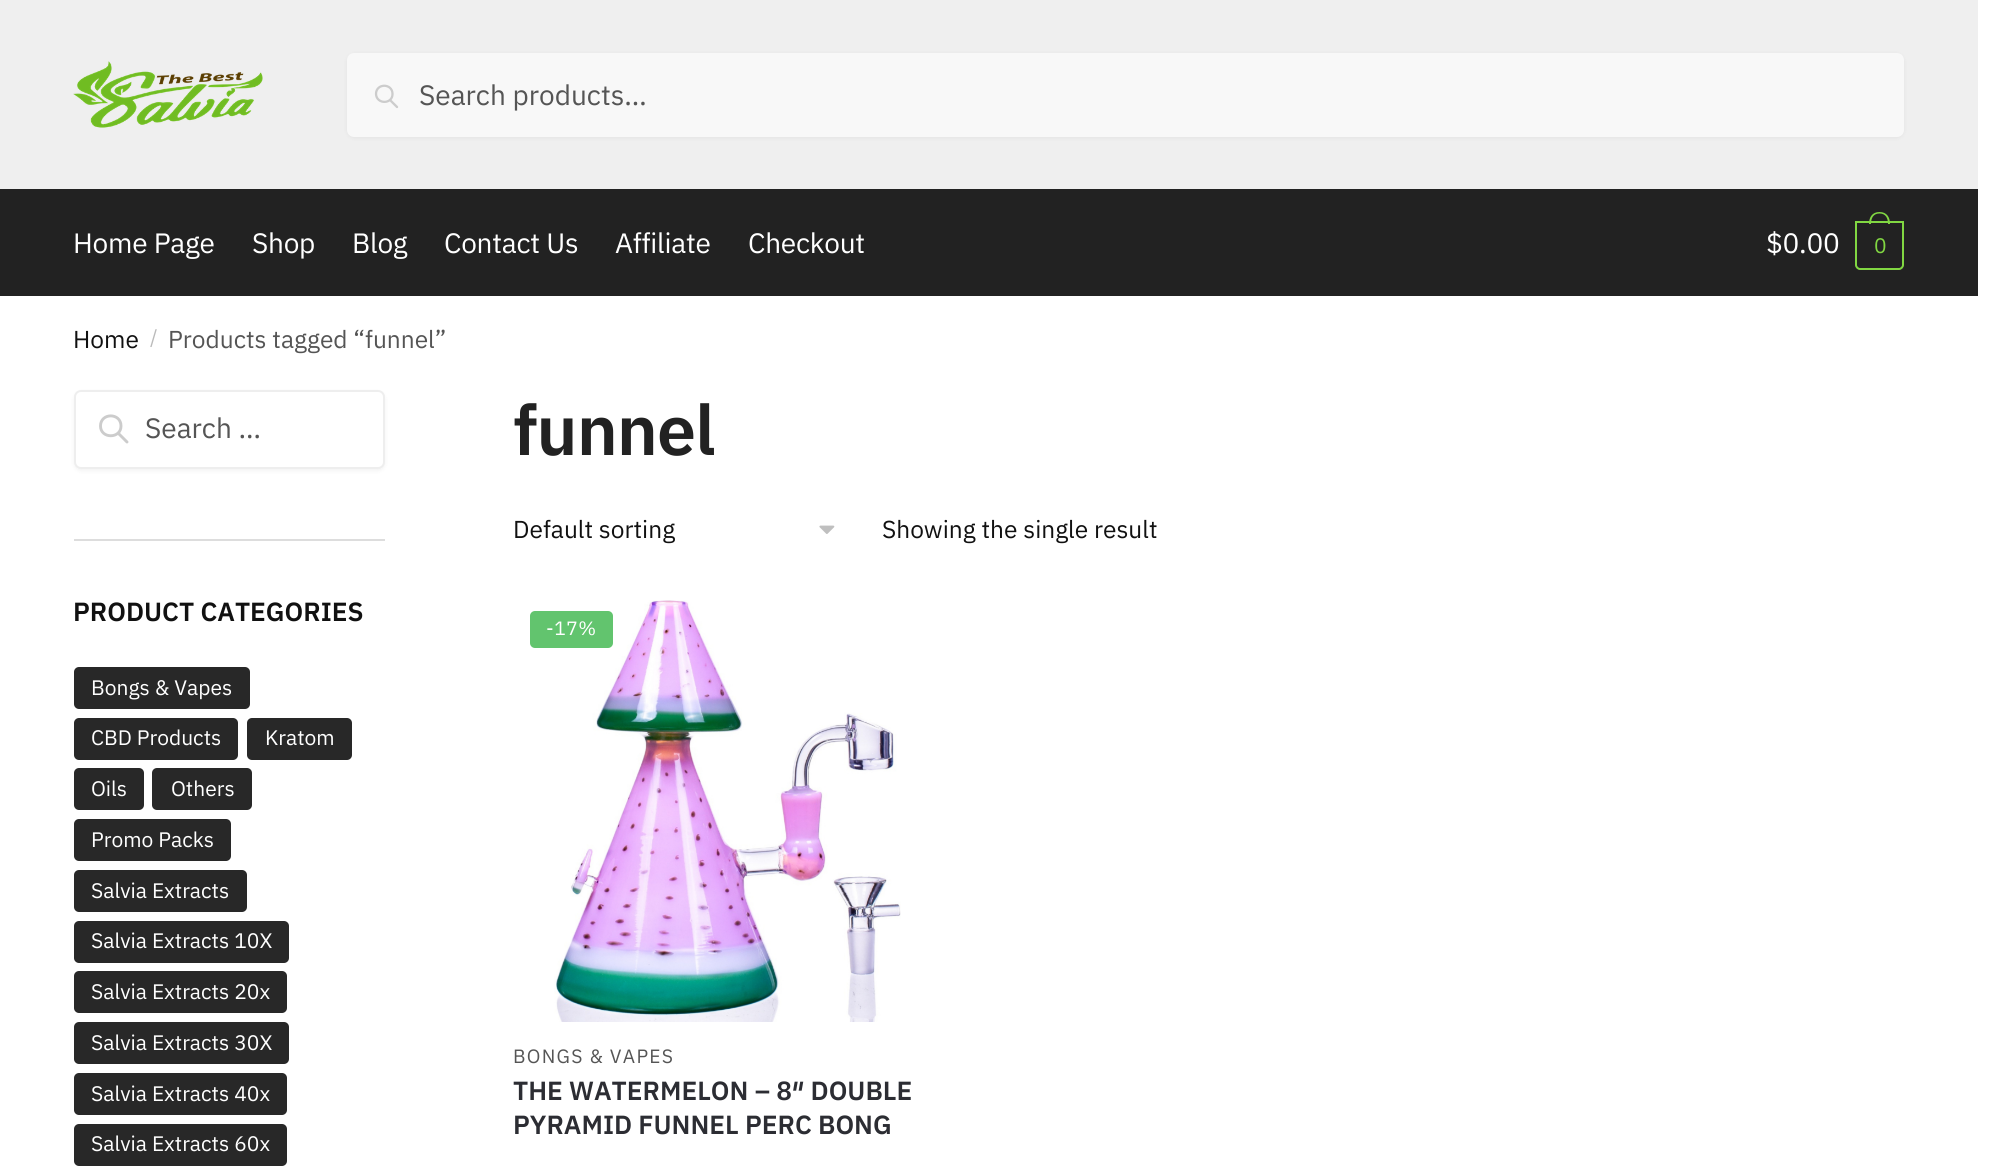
#include <cairo.h>
#include <math.h>
#include <stddef.h>

typedef struct { double x, y; const char *s; } line_t;

static void ink(cairo_t *ctx, unsigned color) {
    cairo_set_source_rgb(ctx, (color >> 16) / 255.0, (color >> 8 & 255) / 255.0, (color & 255) / 255.0);
}

static void write_spaced(cairo_t *ctx, double x, double y, const char *s, double letter, double word) {
    cairo_move_to(ctx, x, y);
    while (*s) {
        char ch[5] = {0};
        int n = 0;
        do ch[n++] = *s++; while ((*s & 0xC0) == 0x80);
        cairo_show_text(ctx, ch);
        cairo_rel_move_to(ctx, letter + word * (*ch == ' '), 0);
    }
}

static void round_path(cairo_t *ctx, double x, double y, double w, double h, double r) {
    cairo_new_sub_path(ctx);
    cairo_arc(ctx, x + w - r, y + h - r, r, 0, M_PI / 2);
    cairo_arc(ctx, x + r, y + h - r, r, M_PI / 2, M_PI);
    cairo_arc(ctx, x + r, y + r, r, M_PI, 1.5 * M_PI);
    cairo_arc(ctx, x + w - r, y + r, r, 1.5 * M_PI, 2 * M_PI);
    cairo_close_path(ctx);
}

static void blur_box(cairo_t *ctx, double x, double y, double w, double h, double r, double blur, double alpha) {
    cairo_push_group_with_content(ctx, CAIRO_CONTENT_ALPHA);
    cairo_set_operator(ctx, CAIRO_OPERATOR_SOURCE);
    for (int i = 15; i >= -15 && fmin(w, h) + blur * i / 3 > 0; i -= 2) {
        double e = blur * i / 6;
        cairo_set_source_rgba(ctx, 0, 0, 0, alpha * erfc((i - 1) / 8.5) / 2);
        round_path(ctx, x - e, y - e, w + 2 * e, h + 2 * e, fmax(0, fmin(r + e + blur * .6, fmin(w, h) / 2 + e)));
        cairo_fill(ctx);
    }
    cairo_pattern_t *soft = cairo_pop_group(ctx);
    cairo_mask(ctx, soft);
    cairo_pattern_destroy(soft);
}

static void paste(cairo_t *ctx, const char *path, double x, double y, double w, double h) {
    cairo_surface_t *image = cairo_image_surface_create_from_png(path);
    cairo_save(ctx);
    cairo_set_source_surface(ctx, image, x, y);
    cairo_rectangle(ctx, x, y, w, h);
    cairo_fill(ctx);
    cairo_restore(ctx);
    cairo_surface_destroy(image);
}

int main(void) {
    cairo_surface_t *surface = cairo_image_surface_create(CAIRO_FORMAT_RGB24, 2003, 1167);
    cairo_t *ctx = cairo_create(surface);
    cairo_font_options_t *options = cairo_font_options_create();
    cairo_font_options_set_hint_metrics(options, CAIRO_HINT_METRICS_OFF);
    cairo_font_options_set_hint_style(options, CAIRO_HINT_STYLE_NONE);
    cairo_set_font_options(ctx, options);
    cairo_set_miter_limit(ctx, 4);
    ink(ctx, 0xFFFFFF);
    cairo_paint(ctx);
    ink(ctx, 0xEFEFEF);
    cairo_rectangle(ctx, 0, 0, 1978, 189);
    cairo_fill(ctx);
    paste(ctx, "media/1.png", 73, 61, 190, 67);
    ink(ctx, 0x000000);
    blur_box(ctx, 347, 54, 1557, 84, 7, 2, 0.05);
    ink(ctx, 0xF8F8F8);
    round_path(ctx, 348, 54, 1555, 82, 6);
    cairo_fill_preserve(ctx);
    cairo_stroke(ctx);
    cairo_new_path(ctx);
    cairo_move_to(ctx, 397, 107);
    cairo_line_to(ctx, 390, 100);
    cairo_move_to(ctx, 392.5, 94);
    cairo_curve_to(ctx, 392.5, 104.5, 376.5, 104.5, 376, 94);
    cairo_curve_to(ctx, 376, 83, 392.5, 83, 392.5, 94);
    cairo_close_path(ctx);
    ink(ctx, 0xCCCCCC);
    cairo_set_line_width(ctx, 2.3);
    cairo_set_line_cap(ctx, CAIRO_LINE_CAP_ROUND);
    cairo_set_line_join(ctx, CAIRO_LINE_JOIN_ROUND);
    cairo_stroke(ctx);
    cairo_select_font_face(ctx, "IBM Plex Sans", CAIRO_FONT_SLANT_NORMAL, CAIRO_FONT_WEIGHT_NORMAL);
    cairo_set_font_size(ctx, 28);
    ink(ctx, 0x555555);
    cairo_move_to(ctx, 419, 105);
    cairo_show_text(ctx, "Search products…");
    ink(ctx, 0x222222);
    cairo_rectangle(ctx, 0, 189, 1978, 107);
    cairo_fill(ctx);
    ink(ctx, 0xFFFFFF);
    {
        static const line_t items[] = {
            {73, 253, "Home Page"},
            {252, 253, "Shop"},
            {352, 253, "Blog"},
            {444, 253, "Contact Us"},
            {615, 253, "Affiliate"},
            {748, 253, "Checkout"},
            {1766, 253, "$0.00"},
        };
        for (size_t i = 0; i < sizeof items / sizeof *items; i++) {
            write_spaced(ctx, items[i].x, items[i].y, items[i].s, -0.25, 0);
        }
    }
    cairo_new_path(ctx);
    cairo_move_to(ctx, 1856, 222);
    cairo_line_to(ctx, 1903, 222);
    cairo_line_to(ctx, 1903, 265);
    cairo_curve_to(ctx, 1903, 267, 1901, 269, 1899, 269);
    cairo_line_to(ctx, 1860, 269);
    cairo_curve_to(ctx, 1858, 269, 1856, 267, 1856, 265);
    cairo_close_path(ctx);
    ink(ctx, 0x81D742);
    cairo_set_line_width(ctx, 2);
    cairo_set_line_cap(ctx, CAIRO_LINE_CAP_BUTT);
    cairo_set_line_join(ctx, CAIRO_LINE_JOIN_MITER);
    cairo_stroke(ctx);
    cairo_set_fill_rule(ctx, CAIRO_FILL_RULE_EVEN_ODD);
    cairo_new_path(ctx);
    cairo_move_to(ctx, 1879.5, 212);
    cairo_curve_to(ctx, 1887, 212, 1890, 217.5, 1890, 224);
    cairo_line_to(ctx, 1869, 224);
    cairo_curve_to(ctx, 1869, 217.5, 1872, 212, 1879.5, 212);
    cairo_close_path(ctx);
    cairo_move_to(ctx, 1879.5, 213.5);
    cairo_curve_to(ctx, 1886, 213.5, 1888, 218.5, 1888, 224);
    cairo_line_to(ctx, 1871, 224);
    cairo_curve_to(ctx, 1871, 218.5, 1873, 213.5, 1879.5, 213.5);
    cairo_close_path(ctx);
    cairo_fill(ctx);
    cairo_set_font_size(ctx, 21);
    write_spaced(ctx, 1874, 253, "0", -1, 0);
    cairo_set_font_size(ctx, 24.5);
    ink(ctx, 0x111111);
    cairo_move_to(ctx, 73, 348);
    cairo_show_text(ctx, "Home");
    cairo_set_font_size(ctx, 20);
    ink(ctx, 0xBBBBBB);
    cairo_move_to(ctx, 150, 344);
    cairo_show_text(ctx, "/");
    cairo_set_font_size(ctx, 24.5);
    ink(ctx, 0x555555);
    cairo_move_to(ctx, 168, 348);
    cairo_show_text(ctx, "Products tagged “funnel”");
    ink(ctx, 0xDDDDDD);
    cairo_rectangle(ctx, 74, 539, 311, 2);
    cairo_fill(ctx);
    ink(ctx, 0x000000);
    blur_box(ctx, 74, 392, 311, 79, 7, 2, 0.05);
    ink(ctx, 0xFFFFFF);
    round_path(ctx, 75, 391, 309, 77, 6);
    cairo_fill_preserve(ctx);
    ink(ctx, 0xEEEEEE);
    cairo_stroke(ctx);
    cairo_new_path(ctx);
    cairo_move_to(ctx, 127, 442);
    cairo_line_to(ctx, 118, 433);
    cairo_move_to(ctx, 121, 426);
    cairo_curve_to(ctx, 121, 439, 100.5, 439, 100.5, 426);
    cairo_curve_to(ctx, 100.5, 412.5, 121, 412.5, 121, 426);
    cairo_close_path(ctx);
    ink(ctx, 0xCCCCCC);
    cairo_set_line_width(ctx, 2.9);
    cairo_set_line_cap(ctx, CAIRO_LINE_CAP_ROUND);
    cairo_set_line_join(ctx, CAIRO_LINE_JOIN_ROUND);
    cairo_stroke(ctx);
    cairo_set_font_size(ctx, 28);
    ink(ctx, 0x555555);
    cairo_move_to(ctx, 145, 438);
    cairo_show_text(ctx, "Search …");
    cairo_select_font_face(ctx, "IBM Plex Sans SemiBold", CAIRO_FONT_SLANT_NORMAL, CAIRO_FONT_WEIGHT_NORMAL);
    cairo_set_font_size(ctx, 26.25);
    ink(ctx, 0x111111);
    cairo_move_to(ctx, 73, 621);
    cairo_show_text(ctx, "PRODUCT CATEGORIES");
    ink(ctx, 0x282828);
    round_path(ctx, 74, 667, 176, 42, 5);
    cairo_fill(ctx);
    cairo_select_font_face(ctx, "IBM Plex Sans", CAIRO_FONT_SLANT_NORMAL, CAIRO_FONT_WEIGHT_NORMAL);
    cairo_set_font_size(ctx, 21);
    ink(ctx, 0xFFFFFF);
    cairo_move_to(ctx, 91, 695);
    cairo_show_text(ctx, "Bongs & Vapes");
    ink(ctx, 0x282828);
    round_path(ctx, 74, 718, 164, 42, 5);
    cairo_fill(ctx);
    ink(ctx, 0xFFFFFF);
    cairo_move_to(ctx, 91, 745);
    cairo_show_text(ctx, "CBD Products");
    ink(ctx, 0x282828);
    round_path(ctx, 247, 718, 105, 42, 5);
    cairo_fill(ctx);
    ink(ctx, 0xFFFFFF);
    cairo_move_to(ctx, 265, 745);
    cairo_show_text(ctx, "Kratom");
    ink(ctx, 0x282828);
    round_path(ctx, 74, 768, 70, 42, 5);
    cairo_fill(ctx);
    ink(ctx, 0xFFFFFF);
    cairo_move_to(ctx, 91, 796);
    cairo_show_text(ctx, "Oils");
    ink(ctx, 0x282828);
    round_path(ctx, 152, 768, 100, 42, 5);
    cairo_fill(ctx);
    ink(ctx, 0xFFFFFF);
    cairo_move_to(ctx, 171, 796);
    cairo_show_text(ctx, "Others");
    ink(ctx, 0x282828);
    round_path(ctx, 74, 819, 157, 42, 5);
    cairo_fill(ctx);
    ink(ctx, 0xFFFFFF);
    cairo_move_to(ctx, 91, 847);
    cairo_show_text(ctx, "Promo Packs");
    ink(ctx, 0x282828);
    round_path(ctx, 74, 870, 173, 42, 5);
    cairo_fill(ctx);
    ink(ctx, 0xFFFFFF);
    cairo_move_to(ctx, 91, 898);
    cairo_show_text(ctx, "Salvia Extracts");
    ink(ctx, 0x282828);
    round_path(ctx, 74, 921, 215, 42, 5);
    cairo_fill(ctx);
    ink(ctx, 0xFFFFFF);
    cairo_move_to(ctx, 91, 948);
    cairo_show_text(ctx, "Salvia Extracts 10X");
    ink(ctx, 0x282828);
    round_path(ctx, 74, 971, 213, 42, 5);
    cairo_fill(ctx);
    ink(ctx, 0xFFFFFF);
    cairo_move_to(ctx, 91, 999);
    cairo_show_text(ctx, "Salvia Extracts 20x");
    ink(ctx, 0x282828);
    round_path(ctx, 74, 1022, 215, 42, 5);
    cairo_fill(ctx);
    ink(ctx, 0xFFFFFF);
    cairo_move_to(ctx, 91, 1050);
    cairo_show_text(ctx, "Salvia Extracts 30X");
    ink(ctx, 0x282828);
    round_path(ctx, 74, 1073, 213, 42, 5);
    cairo_fill(ctx);
    ink(ctx, 0xFFFFFF);
    cairo_move_to(ctx, 91, 1101);
    cairo_show_text(ctx, "Salvia Extracts 40x");
    ink(ctx, 0x282828);
    round_path(ctx, 74, 1124, 213, 42, 5);
    cairo_fill(ctx);
    ink(ctx, 0xFFFFFF);
    cairo_move_to(ctx, 91, 1151);
    cairo_show_text(ctx, "Salvia Extracts 60x");
    cairo_select_font_face(ctx, "IBM Plex Sans SemiBold", CAIRO_FONT_SLANT_NORMAL, CAIRO_FONT_WEIGHT_NORMAL);
    cairo_set_font_size(ctx, 70);
    ink(ctx, 0x222222);
    write_spaced(ctx, 513, 455, "funnel", -1, 0);
    paste(ctx, "media/2.png", 819, 525, 16, 9);
    cairo_select_font_face(ctx, "IBM Plex Sans", CAIRO_FONT_SLANT_NORMAL, CAIRO_FONT_WEIGHT_NORMAL);
    cairo_set_font_size(ctx, 24.5);
    ink(ctx, 0x111111);
    cairo_move_to(ctx, 513, 538);
    cairo_show_text(ctx, "Default sorting");
    cairo_move_to(ctx, 882, 538);
    cairo_show_text(ctx, "Showing the single result");
    paste(ctx, "media/3.png", 554, 600, 347, 422);
    ink(ctx, 0x62C46E);
    round_path(ctx, 530, 611, 83, 37, 5);
    cairo_fill(ctx);
    cairo_set_font_size(ctx, 19.25);
    ink(ctx, 0xFFFFFF);
    write_spaced(ctx, 546, 635, "-17%", 0.5, 0);
    ink(ctx, 0x555555);
    write_spaced(ctx, 513, 1063, "BONGS & VAPES", 1.25, 0);
    cairo_select_font_face(ctx, "IBM Plex Sans SemiBold", CAIRO_FONT_SLANT_NORMAL, CAIRO_FONT_WEIGHT_NORMAL);
    cairo_set_font_size(ctx, 26.25);
    ink(ctx, 0x2C2D33);
    cairo_move_to(ctx, 513, 1100);
    cairo_show_text(ctx, "THE WATERMELON – 8″ DOUBLE");
    cairo_move_to(ctx, 513, 1134);
    cairo_show_text(ctx, "PYRAMID FUNNEL PERC BONG");
    cairo_surface_write_to_png(surface, "image.png");
    cairo_font_options_destroy(options);
    cairo_destroy(ctx);
    cairo_surface_destroy(surface);
    return 0;
}
